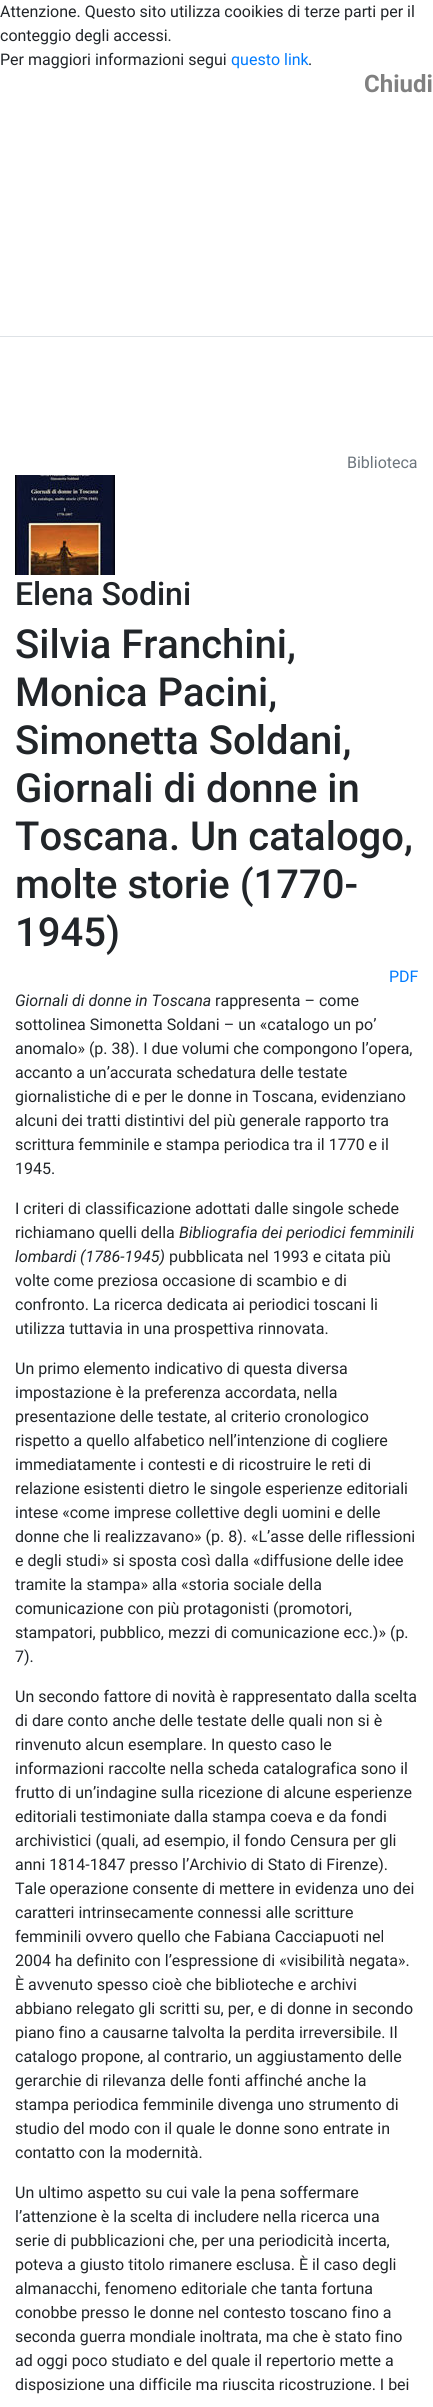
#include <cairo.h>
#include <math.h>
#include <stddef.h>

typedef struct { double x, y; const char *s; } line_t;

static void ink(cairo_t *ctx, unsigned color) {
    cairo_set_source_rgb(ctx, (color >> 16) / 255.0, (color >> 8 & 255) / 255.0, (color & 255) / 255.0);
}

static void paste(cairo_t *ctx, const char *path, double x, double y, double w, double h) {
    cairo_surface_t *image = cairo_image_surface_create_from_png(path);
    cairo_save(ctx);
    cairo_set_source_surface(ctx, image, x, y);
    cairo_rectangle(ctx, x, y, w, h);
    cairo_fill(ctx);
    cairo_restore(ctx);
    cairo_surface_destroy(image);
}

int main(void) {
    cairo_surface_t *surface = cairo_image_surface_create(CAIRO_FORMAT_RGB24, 433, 2407);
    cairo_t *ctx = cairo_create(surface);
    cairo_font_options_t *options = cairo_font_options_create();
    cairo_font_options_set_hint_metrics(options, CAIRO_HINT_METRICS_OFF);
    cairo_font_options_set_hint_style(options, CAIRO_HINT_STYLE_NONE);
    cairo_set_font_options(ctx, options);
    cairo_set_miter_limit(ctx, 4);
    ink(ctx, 0xFFFFFF);
    cairo_paint(ctx);
    cairo_select_font_face(ctx, "Roboto", CAIRO_FONT_SLANT_NORMAL, CAIRO_FONT_WEIGHT_NORMAL);
    cairo_set_font_size(ctx, 16);
    ink(ctx, 0x212529);
    {
        static const line_t items[] = {
            {0, 17, "Attenzione. Questo sito utilizza cooikies di terze parti per il"},
            {0, 41, "conteggio degli accessi."},
            {0, 65, "Per maggiori informazioni segui"},
        };
        for (size_t i = 0; i < sizeof items / sizeof *items; i++) {
            cairo_move_to(ctx, items[i].x, items[i].y);
            cairo_show_text(ctx, items[i].s);
        }
    }
    ink(ctx, 0x007BFF);
    cairo_move_to(ctx, 231, 65);
    cairo_show_text(ctx, "questo link");
    ink(ctx, 0x212529);
    cairo_move_to(ctx, 308, 65);
    cairo_show_text(ctx, ".");
    cairo_select_font_face(ctx, "Roboto", CAIRO_FONT_SLANT_NORMAL, CAIRO_FONT_WEIGHT_BOLD);
    cairo_set_font_size(ctx, 24);
    ink(ctx, 0x808080);
    cairo_move_to(ctx, 364, 92);
    cairo_show_text(ctx, "Chiudi");
    ink(ctx, 0xDEE2E6);
    cairo_rectangle(ctx, 0, 336, 433, 1);
    cairo_fill(ctx);
    cairo_select_font_face(ctx, "Roboto", CAIRO_FONT_SLANT_NORMAL, CAIRO_FONT_WEIGHT_NORMAL);
    cairo_set_font_size(ctx, 16);
    ink(ctx, 0x6C757D);
    cairo_move_to(ctx, 347, 468);
    cairo_show_text(ctx, "Biblioteca");
    paste(ctx, "media/1.png", 15, 475, 100, 100);
    cairo_select_font_face(ctx, "Roboto Medium", CAIRO_FONT_SLANT_NORMAL, CAIRO_FONT_WEIGHT_NORMAL);
    cairo_set_font_size(ctx, 32);
    ink(ctx, 0x212529);
    cairo_move_to(ctx, 15, 605);
    cairo_show_text(ctx, "Elena Sodini");
    cairo_set_font_size(ctx, 40);
    {
        static const line_t items[] = {
            {15, 658, "Silvia Franchini,"},
            {15, 706, "Monica Pacini,"},
            {15, 754, "Simonetta Soldani,"},
            {15, 802, "Giornali di donne in"},
            {15, 850, "Toscana. Un catalogo,"},
            {15, 898, "molte storie (1770-"},
            {15, 946, "1945)"},
        };
        for (size_t i = 0; i < sizeof items / sizeof *items; i++) {
            cairo_move_to(ctx, items[i].x, items[i].y);
            cairo_show_text(ctx, items[i].s);
        }
    }
    cairo_select_font_face(ctx, "Roboto", CAIRO_FONT_SLANT_NORMAL, CAIRO_FONT_WEIGHT_NORMAL);
    cairo_set_font_size(ctx, 16);
    ink(ctx, 0x007BFF);
    cairo_move_to(ctx, 389, 982);
    cairo_show_text(ctx, "PDF");
    cairo_select_font_face(ctx, "Roboto", CAIRO_FONT_SLANT_ITALIC, CAIRO_FONT_WEIGHT_NORMAL);
    ink(ctx, 0x212529);
    cairo_move_to(ctx, 15, 1006);
    cairo_show_text(ctx, "Giornali di donne in Toscana");
    cairo_select_font_face(ctx, "Roboto", CAIRO_FONT_SLANT_NORMAL, CAIRO_FONT_WEIGHT_NORMAL);
    {
        static const line_t items[] = {
            {215, 1006, "rappresenta – come"},
            {15, 1030, "sottolinea Simonetta Soldani – un «catalogo un po’"},
            {15, 1054, "anomalo» (p. 38). I due volumi che compongono l’opera,"},
            {15, 1078, "accanto a un’accurata schedatura delle testate"},
            {15, 1102, "giornalistiche di e per le donne in Toscana, evidenziano"},
            {15, 1126, "alcuni dei tratti distintivi del più generale rapporto tra"},
            {15, 1150, "scrittura femminile e stampa periodica tra il 1770 e il"},
            {15, 1174, "1945."},
            {15, 1214, "I criteri di classificazione adottati dalle singole schede"},
            {15, 1238, "richiamano quelli della"},
        };
        for (size_t i = 0; i < sizeof items / sizeof *items; i++) {
            cairo_move_to(ctx, items[i].x, items[i].y);
            cairo_show_text(ctx, items[i].s);
        }
    }
    cairo_select_font_face(ctx, "Roboto", CAIRO_FONT_SLANT_ITALIC, CAIRO_FONT_WEIGHT_NORMAL);
    cairo_move_to(ctx, 179, 1238);
    cairo_show_text(ctx, "Bibliografia dei periodici femminili");
    cairo_move_to(ctx, 15, 1262);
    cairo_show_text(ctx, "lombardi (1786-1945)");
    cairo_select_font_face(ctx, "Roboto", CAIRO_FONT_SLANT_NORMAL, CAIRO_FONT_WEIGHT_NORMAL);
    {
        static const line_t items[] = {
            {169, 1262, "pubblicata nel 1993 e citata più"},
            {15, 1286, "volte come preziosa occasione di scambio e di"},
            {15, 1310, "confronto. La ricerca dedicata ai periodici toscani li"},
            {15, 1334, "utilizza tuttavia in una prospettiva rinnovata."},
            {15, 1374, "Un primo elemento indicativo di questa diversa"},
            {15, 1398, "impostazione è la preferenza accordata, nella"},
            {15, 1422, "presentazione delle testate, al criterio cronologico"},
            {15, 1446, "rispetto a quello alfabetico nell’intenzione di cogliere"},
            {15, 1470, "immediatamente i contesti e di ricostruire le reti di"},
            {15, 1494, "relazione esistenti dietro le singole esperienze editoriali"},
            {15, 1518, "intese «come imprese collettive degli uomini e delle"},
            {15, 1542, "donne che li realizzavano» (p. 8). «L’asse delle riflessioni"},
            {15, 1566, "e degli studi» si sposta così dalla «diffusione delle idee"},
            {15, 1590, "tramite la stampa» alla «storia sociale della"},
            {15, 1614, "comunicazione con più protagonisti (promotori,"},
            {15, 1638, "stampatori, pubblico, mezzi di comunicazione ecc.)» (p."},
            {15, 1662, "7)."},
            {15, 1702, "Un secondo fattore di novità è rappresentato dalla scelta"},
            {15, 1726, "di dare conto anche delle testate delle quali non si è"},
            {15, 1750, "rinvenuto alcun esemplare. In questo caso le"},
            {15, 1774, "informazioni raccolte nella scheda catalografica sono il"},
            {15, 1798, "frutto di un’indagine sulla ricezione di alcune esperienze"},
            {15, 1822, "editoriali testimoniate dalla stampa coeva e da fondi"},
            {15, 1846, "archivistici (quali, ad esempio, il fondo Censura per gli"},
            {15, 1870, "anni 1814-1847 presso l’Archivio di Stato di Firenze)."},
            {15, 1894, "Tale operazione consente di mettere in evidenza uno dei"},
            {15, 1918, "caratteri intrinsecamente connessi alle scritture"},
            {15, 1942, "femminili ovvero quello che Fabiana Cacciapuoti nel"},
            {15, 1966, "2004 ha definito con l’espressione di «visibilità negata»."},
            {15, 1990, "È avvenuto spesso cioè che biblioteche e archivi"},
            {15, 2014, "abbiano relegato gli scritti su, per, e di donne in secondo"},
            {15, 2038, "piano fino a causarne talvolta la perdita irreversibile. Il"},
            {15, 2062, "catalogo propone, al contrario, un aggiustamento delle"},
            {15, 2086, "gerarchie di rilevanza delle fonti affinché anche la"},
            {15, 2110, "stampa periodica femminile divenga uno strumento di"},
            {15, 2134, "studio del modo con il quale le donne sono entrate in"},
            {15, 2158, "contatto con la modernità."},
            {15, 2198, "Un ultimo aspetto su cui vale la pena soffermare"},
            {15, 2222, "l’attenzione è la scelta di includere nella ricerca una"},
            {15, 2246, "serie di pubblicazioni che, per una periodicità incerta,"},
            {15, 2270, "poteva a giusto titolo rimanere esclusa. È il caso degli"},
            {15, 2294, "almanacchi, fenomeno editoriale che tanta fortuna"},
            {15, 2318, "conobbe presso le donne nel contesto toscano fino a"},
            {15, 2342, "seconda guerra mondiale inoltrata, ma che è stato fino"},
            {15, 2366, "ad oggi poco studiato e del quale il repertorio mette a"},
            {15, 2390, "disposizione una difficile ma riuscita ricostruzione. I bei"},
        };
        for (size_t i = 0; i < sizeof items / sizeof *items; i++) {
            cairo_move_to(ctx, items[i].x, items[i].y);
            cairo_show_text(ctx, items[i].s);
        }
    }
    cairo_surface_write_to_png(surface, "image.png");
    cairo_font_options_destroy(options);
    cairo_destroy(ctx);
    cairo_surface_destroy(surface);
    return 0;
}
